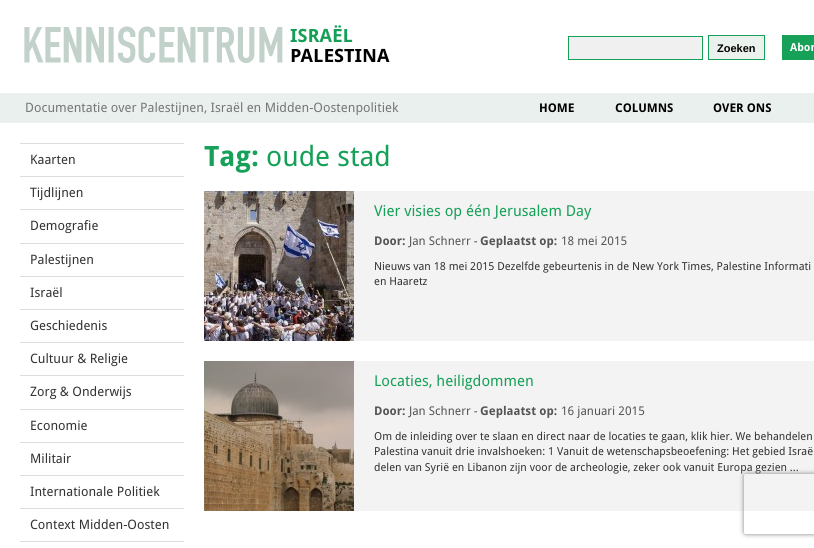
#include <cairo.h>
#include <math.h>
#include <stddef.h>

typedef struct { double x, y; const char *s; } line_t;

static void ink(cairo_t *ctx, unsigned color) {
    cairo_set_source_rgb(ctx, (color >> 16) / 255.0, (color >> 8 & 255) / 255.0, (color & 255) / 255.0);
}

static void round_path(cairo_t *ctx, double x, double y, double w, double h, double r) {
    cairo_new_sub_path(ctx);
    cairo_arc(ctx, x + w - r, y + h - r, r, 0, M_PI / 2);
    cairo_arc(ctx, x + r, y + h - r, r, M_PI / 2, M_PI);
    cairo_arc(ctx, x + r, y + r, r, M_PI, 1.5 * M_PI);
    cairo_arc(ctx, x + w - r, y + r, r, 1.5 * M_PI, 2 * M_PI);
    cairo_close_path(ctx);
}

static void blur_box(cairo_t *ctx, double x, double y, double w, double h, double r, double blur, double alpha) {
    cairo_push_group_with_content(ctx, CAIRO_CONTENT_ALPHA);
    cairo_set_operator(ctx, CAIRO_OPERATOR_SOURCE);
    for (int i = 15; i >= -15 && fmin(w, h) + blur * i / 3 > 0; i -= 2) {
        double e = blur * i / 6;
        cairo_set_source_rgba(ctx, 0, 0, 0, alpha * erfc((i - 1) / 8.5) / 2);
        round_path(ctx, x - e, y - e, w + 2 * e, h + 2 * e, fmax(0, fmin(r + e + blur * .6, fmin(w, h) / 2 + e)));
        cairo_fill(ctx);
    }
    cairo_pattern_t *soft = cairo_pop_group(ctx);
    cairo_mask(ctx, soft);
    cairo_pattern_destroy(soft);
}

static void paste(cairo_t *ctx, const char *path, double x, double y, double w, double h) {
    cairo_surface_t *image = cairo_image_surface_create_from_png(path);
    cairo_save(ctx);
    cairo_set_source_surface(ctx, image, x, y);
    cairo_rectangle(ctx, x, y, w, h);
    cairo_fill(ctx);
    cairo_restore(ctx);
    cairo_surface_destroy(image);
}

int main(void) {
    cairo_surface_t *surface = cairo_image_surface_create(CAIRO_FORMAT_RGB24, 814, 548);
    cairo_t *ctx = cairo_create(surface);
    cairo_font_options_t *options = cairo_font_options_create();
    cairo_font_options_set_hint_metrics(options, CAIRO_HINT_METRICS_OFF);
    cairo_font_options_set_hint_style(options, CAIRO_HINT_STYLE_NONE);
    cairo_set_font_options(ctx, options);
    cairo_set_miter_limit(ctx, 4);
    ink(ctx, 0xFFFFFF);
    cairo_paint(ctx);
    paste(ctx, "media/1.png", 24, 25, 366, 38);
    ink(ctx, 0xF0F0F0);
    cairo_rectangle(ctx, 568.5, 36.5, 134, 23);
    cairo_fill_preserve(ctx);
    ink(ctx, 0x16A058);
    cairo_set_line_width(ctx, 1);
    cairo_stroke(ctx);
    ink(ctx, 0xEBF1ED);
    cairo_rectangle(ctx, 708.5, 35.5, 56, 24);
    cairo_fill_preserve(ctx);
    ink(ctx, 0x16A058);
    cairo_stroke(ctx);
    cairo_select_font_face(ctx, "Liberation Sans", CAIRO_FONT_SLANT_NORMAL, CAIRO_FONT_WEIGHT_BOLD);
    cairo_set_font_size(ctx, 11);
    ink(ctx, 0x000000);
    cairo_move_to(ctx, 717, 52);
    cairo_show_text(ctx, "Zoeken");
    ink(ctx, 0x16A058);
    cairo_rectangle(ctx, 782, 35, 32, 25);
    cairo_fill(ctx);
    cairo_select_font_face(ctx, "Droid Sans", CAIRO_FONT_SLANT_NORMAL, CAIRO_FONT_WEIGHT_BOLD);
    ink(ctx, 0xFFFFFF);
    cairo_move_to(ctx, 790, 51);
    cairo_show_text(ctx, "Abon");
    ink(ctx, 0xEAF0ED);
    cairo_rectangle(ctx, 0, 93, 814, 30);
    cairo_fill(ctx);
    cairo_select_font_face(ctx, "Droid Sans", CAIRO_FONT_SLANT_NORMAL, CAIRO_FONT_WEIGHT_NORMAL);
    cairo_set_font_size(ctx, 13);
    ink(ctx, 0x777777);
    cairo_move_to(ctx, 25, 112);
    cairo_show_text(ctx, "Documentatie over Palestijnen, Israël en Midden-Oostenpolitiek");
    cairo_select_font_face(ctx, "Droid Sans", CAIRO_FONT_SLANT_NORMAL, CAIRO_FONT_WEIGHT_BOLD);
    cairo_set_font_size(ctx, 12);
    ink(ctx, 0x000000);
    {
        static const line_t items[] = {
            {539, 112, "HOME"},
            {615, 112, "COLUMNS"},
            {713, 112, "OVER ONS"},
        };
        for (size_t i = 0; i < sizeof items / sizeof *items; i++) {
            cairo_move_to(ctx, items[i].x, items[i].y);
            cairo_show_text(ctx, items[i].s);
        }
    }
    ink(ctx, 0xDDDDDD);
    cairo_rectangle(ctx, 20, 143, 164, 1);
    cairo_fill(ctx);
    cairo_select_font_face(ctx, "Droid Sans", CAIRO_FONT_SLANT_NORMAL, CAIRO_FONT_WEIGHT_NORMAL);
    cairo_set_font_size(ctx, 13);
    ink(ctx, 0x333333);
    cairo_move_to(ctx, 30, 164);
    cairo_show_text(ctx, "Kaarten");
    ink(ctx, 0xDDDDDD);
    cairo_rectangle(ctx, 20, 176, 164, 1);
    cairo_fill(ctx);
    ink(ctx, 0x333333);
    cairo_move_to(ctx, 30, 197);
    cairo_show_text(ctx, "Tijdlijnen");
    ink(ctx, 0xDDDDDD);
    cairo_rectangle(ctx, 20, 209, 164, 1);
    cairo_fill(ctx);
    ink(ctx, 0x333333);
    cairo_move_to(ctx, 30, 230);
    cairo_show_text(ctx, "Demografie");
    ink(ctx, 0xDDDDDD);
    cairo_rectangle(ctx, 20, 243, 164, 1);
    cairo_fill(ctx);
    ink(ctx, 0x333333);
    cairo_move_to(ctx, 30, 264);
    cairo_show_text(ctx, "Palestijnen");
    ink(ctx, 0xDDDDDD);
    cairo_rectangle(ctx, 20, 276, 164, 1);
    cairo_fill(ctx);
    ink(ctx, 0x333333);
    cairo_move_to(ctx, 30, 297);
    cairo_show_text(ctx, "Israël");
    ink(ctx, 0xDDDDDD);
    cairo_rectangle(ctx, 20, 309, 164, 1);
    cairo_fill(ctx);
    ink(ctx, 0x333333);
    cairo_move_to(ctx, 30, 330);
    cairo_show_text(ctx, "Geschiedenis");
    ink(ctx, 0xDDDDDD);
    cairo_rectangle(ctx, 20, 342, 164, 1);
    cairo_fill(ctx);
    ink(ctx, 0x333333);
    cairo_move_to(ctx, 30, 363);
    cairo_show_text(ctx, "Cultuur & Religie");
    ink(ctx, 0xDDDDDD);
    cairo_rectangle(ctx, 20, 375, 164, 1);
    cairo_fill(ctx);
    ink(ctx, 0x333333);
    cairo_move_to(ctx, 30, 396);
    cairo_show_text(ctx, "Zorg & Onderwijs");
    ink(ctx, 0xDDDDDD);
    cairo_rectangle(ctx, 20, 409, 164, 1);
    cairo_fill(ctx);
    ink(ctx, 0x333333);
    cairo_move_to(ctx, 30, 430);
    cairo_show_text(ctx, "Economie");
    ink(ctx, 0xDDDDDD);
    cairo_rectangle(ctx, 20, 442, 164, 1);
    cairo_fill(ctx);
    ink(ctx, 0x333333);
    cairo_move_to(ctx, 30, 463);
    cairo_show_text(ctx, "Militair");
    ink(ctx, 0xDDDDDD);
    cairo_rectangle(ctx, 20, 475, 164, 1);
    cairo_fill(ctx);
    ink(ctx, 0x333333);
    cairo_move_to(ctx, 30, 496);
    cairo_show_text(ctx, "Internationale Politiek");
    ink(ctx, 0xDDDDDD);
    cairo_rectangle(ctx, 20, 508, 164, 1);
    cairo_fill(ctx);
    ink(ctx, 0x333333);
    cairo_move_to(ctx, 30, 529);
    cairo_show_text(ctx, "Context Midden-Oosten");
    ink(ctx, 0xDDDDDD);
    cairo_rectangle(ctx, 20, 541, 164, 1);
    cairo_fill(ctx);
    cairo_select_font_face(ctx, "Droid Sans", CAIRO_FONT_SLANT_NORMAL, CAIRO_FONT_WEIGHT_BOLD);
    cairo_set_font_size(ctx, 28);
    ink(ctx, 0x16A058);
    cairo_move_to(ctx, 204, 166);
    cairo_show_text(ctx, "Tag:");
    cairo_select_font_face(ctx, "Droid Sans", CAIRO_FONT_SLANT_NORMAL, CAIRO_FONT_WEIGHT_NORMAL);
    cairo_move_to(ctx, 266, 166);
    cairo_show_text(ctx, "oude stad");
    ink(ctx, 0xF3F3F3);
    cairo_rectangle(ctx, 354, 191, 460, 150);
    cairo_fill(ctx);
    paste(ctx, "media/2.png", 204, 191, 150, 150);
    cairo_set_font_size(ctx, 15);
    ink(ctx, 0x16A058);
    cairo_move_to(ctx, 374, 216);
    cairo_show_text(ctx, "Vier visies op één Jerusalem Day");
    cairo_select_font_face(ctx, "Droid Sans", CAIRO_FONT_SLANT_NORMAL, CAIRO_FONT_WEIGHT_BOLD);
    cairo_set_font_size(ctx, 12);
    ink(ctx, 0x555555);
    cairo_move_to(ctx, 374, 245);
    cairo_show_text(ctx, "Door:");
    cairo_select_font_face(ctx, "Droid Sans", CAIRO_FONT_SLANT_NORMAL, CAIRO_FONT_WEIGHT_NORMAL);
    cairo_move_to(ctx, 409, 245);
    cairo_show_text(ctx, "Jan Schnerr -");
    cairo_select_font_face(ctx, "Droid Sans", CAIRO_FONT_SLANT_NORMAL, CAIRO_FONT_WEIGHT_BOLD);
    cairo_move_to(ctx, 480, 245);
    cairo_show_text(ctx, "Geplaatst op:");
    cairo_select_font_face(ctx, "Droid Sans", CAIRO_FONT_SLANT_NORMAL, CAIRO_FONT_WEIGHT_NORMAL);
    cairo_move_to(ctx, 561, 245);
    cairo_show_text(ctx, "18 mei 2015");
    cairo_set_font_size(ctx, 11);
    ink(ctx, 0x333333);
    cairo_move_to(ctx, 374, 270);
    cairo_show_text(ctx, "Nieuws van 18 mei 2015 Dezelfde gebeurtenis in de New York Times, Palestine Informati");
    cairo_move_to(ctx, 374, 285);
    cairo_show_text(ctx, "en Haaretz");
    ink(ctx, 0xF3F3F3);
    cairo_rectangle(ctx, 354, 361, 460, 150);
    cairo_fill(ctx);
    paste(ctx, "media/3.png", 204, 361, 150, 150);
    cairo_set_font_size(ctx, 15);
    ink(ctx, 0x16A058);
    cairo_move_to(ctx, 374, 386);
    cairo_show_text(ctx, "Locaties, heiligdommen");
    cairo_select_font_face(ctx, "Droid Sans", CAIRO_FONT_SLANT_NORMAL, CAIRO_FONT_WEIGHT_BOLD);
    cairo_set_font_size(ctx, 12);
    ink(ctx, 0x555555);
    cairo_move_to(ctx, 374, 415);
    cairo_show_text(ctx, "Door:");
    cairo_select_font_face(ctx, "Droid Sans", CAIRO_FONT_SLANT_NORMAL, CAIRO_FONT_WEIGHT_NORMAL);
    cairo_move_to(ctx, 409, 415);
    cairo_show_text(ctx, "Jan Schnerr -");
    cairo_select_font_face(ctx, "Droid Sans", CAIRO_FONT_SLANT_NORMAL, CAIRO_FONT_WEIGHT_BOLD);
    cairo_move_to(ctx, 480, 415);
    cairo_show_text(ctx, "Geplaatst op:");
    cairo_select_font_face(ctx, "Droid Sans", CAIRO_FONT_SLANT_NORMAL, CAIRO_FONT_WEIGHT_NORMAL);
    cairo_move_to(ctx, 561, 415);
    cairo_show_text(ctx, "16 januari 2015");
    cairo_set_font_size(ctx, 11);
    ink(ctx, 0x333333);
    {
        static const line_t items[] = {
            {374, 440, "Om de inleiding over te slaan en direct naar de locaties te gaan, klik hier. We behandelen"},
            {374, 455, "Palestina vanuit drie invalshoeken: 1 Vanuit de wetenschapsbeoefening: Het gebied Israë"},
            {374, 471, "delen van Syrië en Libanon zijn voor de archeologie, zeker ook vanuit Europa gezien ..."},
        };
        for (size_t i = 0; i < sizeof items / sizeof *items; i++) {
            cairo_move_to(ctx, items[i].x, items[i].y);
            cairo_show_text(ctx, items[i].s);
        }
    }
    cairo_save(ctx);
    cairo_set_fill_rule(ctx, CAIRO_FILL_RULE_EVEN_ODD);
    cairo_new_path(ctx);
    cairo_move_to(ctx, 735, 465);
    cairo_line_to(ctx, 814, 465);
    cairo_line_to(ctx, 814, 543);
    cairo_line_to(ctx, 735, 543);
    cairo_close_path(ctx);
    cairo_move_to(ctx, 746, 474);
    cairo_line_to(ctx, 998, 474);
    cairo_curve_to(ctx, 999, 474, 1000, 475, 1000, 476);
    cairo_line_to(ctx, 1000, 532);
    cairo_curve_to(ctx, 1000, 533, 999, 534, 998, 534);
    cairo_line_to(ctx, 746, 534);
    cairo_curve_to(ctx, 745, 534, 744, 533, 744, 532);
    cairo_line_to(ctx, 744, 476);
    cairo_curve_to(ctx, 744, 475, 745, 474, 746, 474);
    cairo_close_path(ctx);
    cairo_clip(ctx);
    ink(ctx, 0x808080);
    blur_box(ctx, 744, 474, 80, 60, 2, 2.5, 1);
    cairo_restore(ctx);
    cairo_surface_write_to_png(surface, "image.png");
    cairo_font_options_destroy(options);
    cairo_destroy(ctx);
    cairo_surface_destroy(surface);
    return 0;
}
